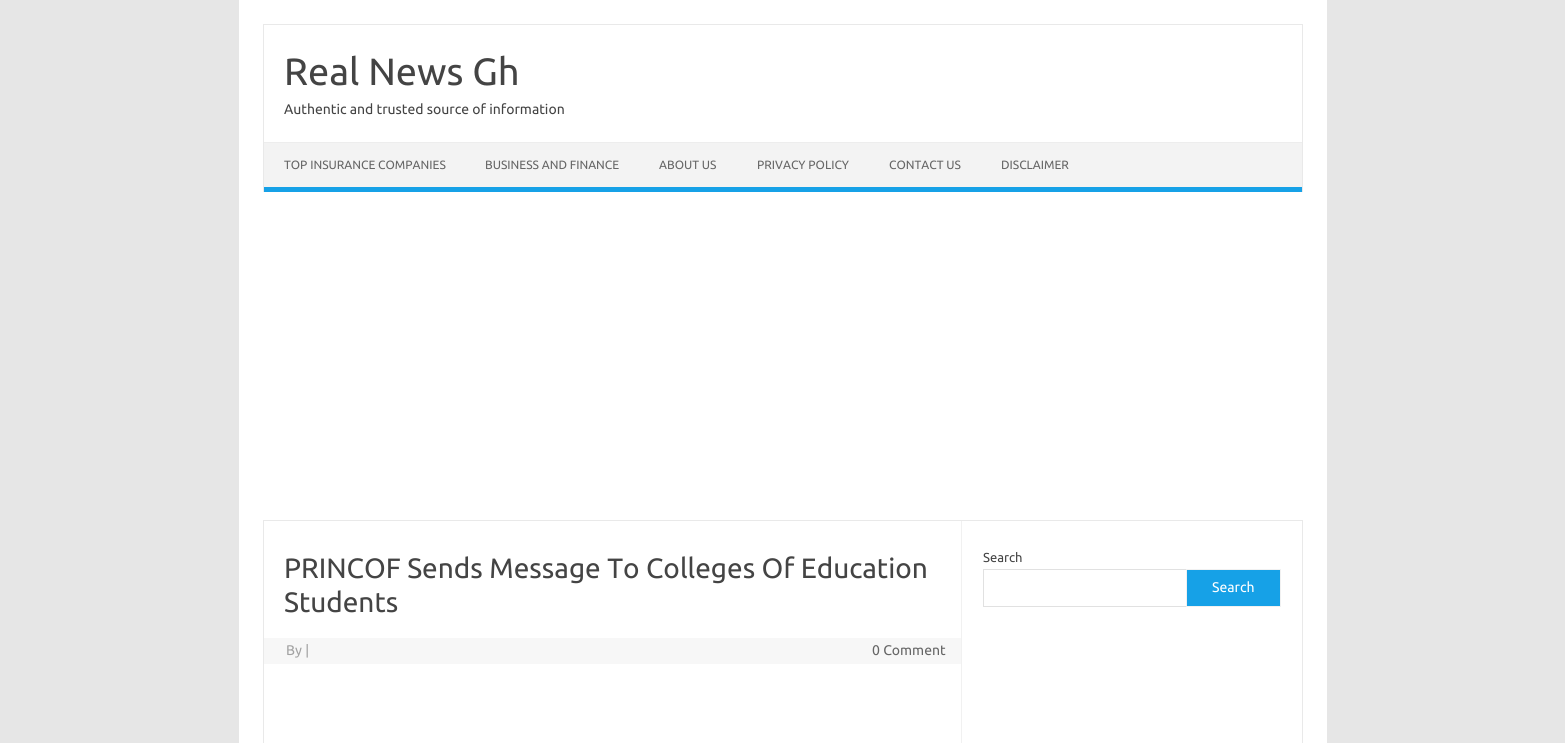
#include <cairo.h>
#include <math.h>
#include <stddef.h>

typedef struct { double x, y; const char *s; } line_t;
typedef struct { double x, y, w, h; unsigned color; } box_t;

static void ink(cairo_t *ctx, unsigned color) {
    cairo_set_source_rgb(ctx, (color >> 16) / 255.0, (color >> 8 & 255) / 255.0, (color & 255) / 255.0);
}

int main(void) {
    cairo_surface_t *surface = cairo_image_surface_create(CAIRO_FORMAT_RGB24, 1565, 743);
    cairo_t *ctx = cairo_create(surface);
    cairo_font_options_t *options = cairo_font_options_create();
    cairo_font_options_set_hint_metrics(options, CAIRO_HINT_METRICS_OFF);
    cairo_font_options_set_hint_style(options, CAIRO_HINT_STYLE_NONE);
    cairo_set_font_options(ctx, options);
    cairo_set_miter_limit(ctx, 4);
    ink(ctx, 0xE6E6E6);
    cairo_paint(ctx);
    {
        static const box_t items[] = {
            {239, 0, 1088, 743, 0xFFFFFF},
            {263, 24, 1040, 1, 0xE9E9E9},
            {1302, 24, 1, 168, 0xE9E9E9},
            {263, 24, 1, 168, 0xE9E9E9},
        };
        for (size_t i = 0; i < sizeof items / sizeof *items; i++) {
            ink(ctx, items[i].color);
            cairo_rectangle(ctx, items[i].x, items[i].y, items[i].w, items[i].h);
            cairo_fill(ctx);
        }
    }
    cairo_select_font_face(ctx, "Ubuntu", CAIRO_FONT_SLANT_NORMAL, CAIRO_FONT_WEIGHT_NORMAL);
    cairo_set_font_size(ctx, 38);
    ink(ctx, 0x444444);
    cairo_move_to(ctx, 284, 85);
    cairo_show_text(ctx, "Real News Gh");
    cairo_set_font_size(ctx, 14);
    cairo_move_to(ctx, 284, 114);
    cairo_show_text(ctx, "Authentic and trusted source of information");
    {
        static const box_t items[] = {
            {264, 143, 1038, 44, 0xF3F3F3},
            {264, 142, 1038, 1, 0xEDEDED},
            {264, 187, 1038, 5, 0x16A1E7},
        };
        for (size_t i = 0; i < sizeof items / sizeof *items; i++) {
            ink(ctx, items[i].color);
            cairo_rectangle(ctx, items[i].x, items[i].y, items[i].w, items[i].h);
            cairo_fill(ctx);
        }
    }
    cairo_set_font_size(ctx, 12);
    ink(ctx, 0x666666);
    {
        static const line_t items[] = {
            {284, 169, "TOP INSURANCE COMPANIES"},
            {485, 169, "BUSINESS AND FINANCE"},
            {659, 169, "ABOUT US"},
            {757, 169, "PRIVACY POLICY"},
            {889, 169, "CONTACT US"},
            {1001, 169, "DISCLAIMER"},
        };
        for (size_t i = 0; i < sizeof items / sizeof *items; i++) {
            cairo_move_to(ctx, items[i].x, items[i].y);
            cairo_show_text(ctx, items[i].s);
        }
    }
    cairo_rectangle(ctx, 263.5, 520.5, 1039, 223);
    ink(ctx, 0xE9E9E9);
    cairo_set_line_width(ctx, 1);
    cairo_stroke(ctx);
    ink(ctx, 0xF1F1F1);
    cairo_rectangle(ctx, 961, 521, 1, 222);
    cairo_fill(ctx);
    cairo_set_font_size(ctx, 28);
    ink(ctx, 0x444444);
    cairo_move_to(ctx, 284, 578);
    cairo_show_text(ctx, "PRINCOF Sends Message To Colleges Of Education");
    cairo_move_to(ctx, 284, 612);
    cairo_show_text(ctx, "Students");
    ink(ctx, 0xF7F7F7);
    cairo_rectangle(ctx, 264, 638, 697, 26);
    cairo_fill(ctx);
    cairo_set_font_size(ctx, 14);
    ink(ctx, 0xA2A2A2);
    cairo_move_to(ctx, 286, 655);
    cairo_show_text(ctx, "By |");
    ink(ctx, 0x666666);
    cairo_move_to(ctx, 872, 655);
    cairo_show_text(ctx, "0 Comment");
    cairo_set_font_size(ctx, 13);
    ink(ctx, 0x444444);
    cairo_move_to(ctx, 983, 562);
    cairo_show_text(ctx, "Search");
    cairo_rectangle(ctx, 983.5, 569.5, 204, 37);
    ink(ctx, 0xE1E1E1);
    cairo_stroke(ctx);
    ink(ctx, 0x16A1E7);
    cairo_rectangle(ctx, 1186.5, 569.5, 94, 37);
    cairo_fill_preserve(ctx);
    ink(ctx, 0xF1F1F1);
    cairo_stroke(ctx);
    cairo_set_font_size(ctx, 14);
    ink(ctx, 0xFFFFFF);
    cairo_move_to(ctx, 1212, 592);
    cairo_show_text(ctx, "Search");
    cairo_surface_write_to_png(surface, "image.png");
    cairo_font_options_destroy(options);
    cairo_destroy(ctx);
    cairo_surface_destroy(surface);
    return 0;
}
